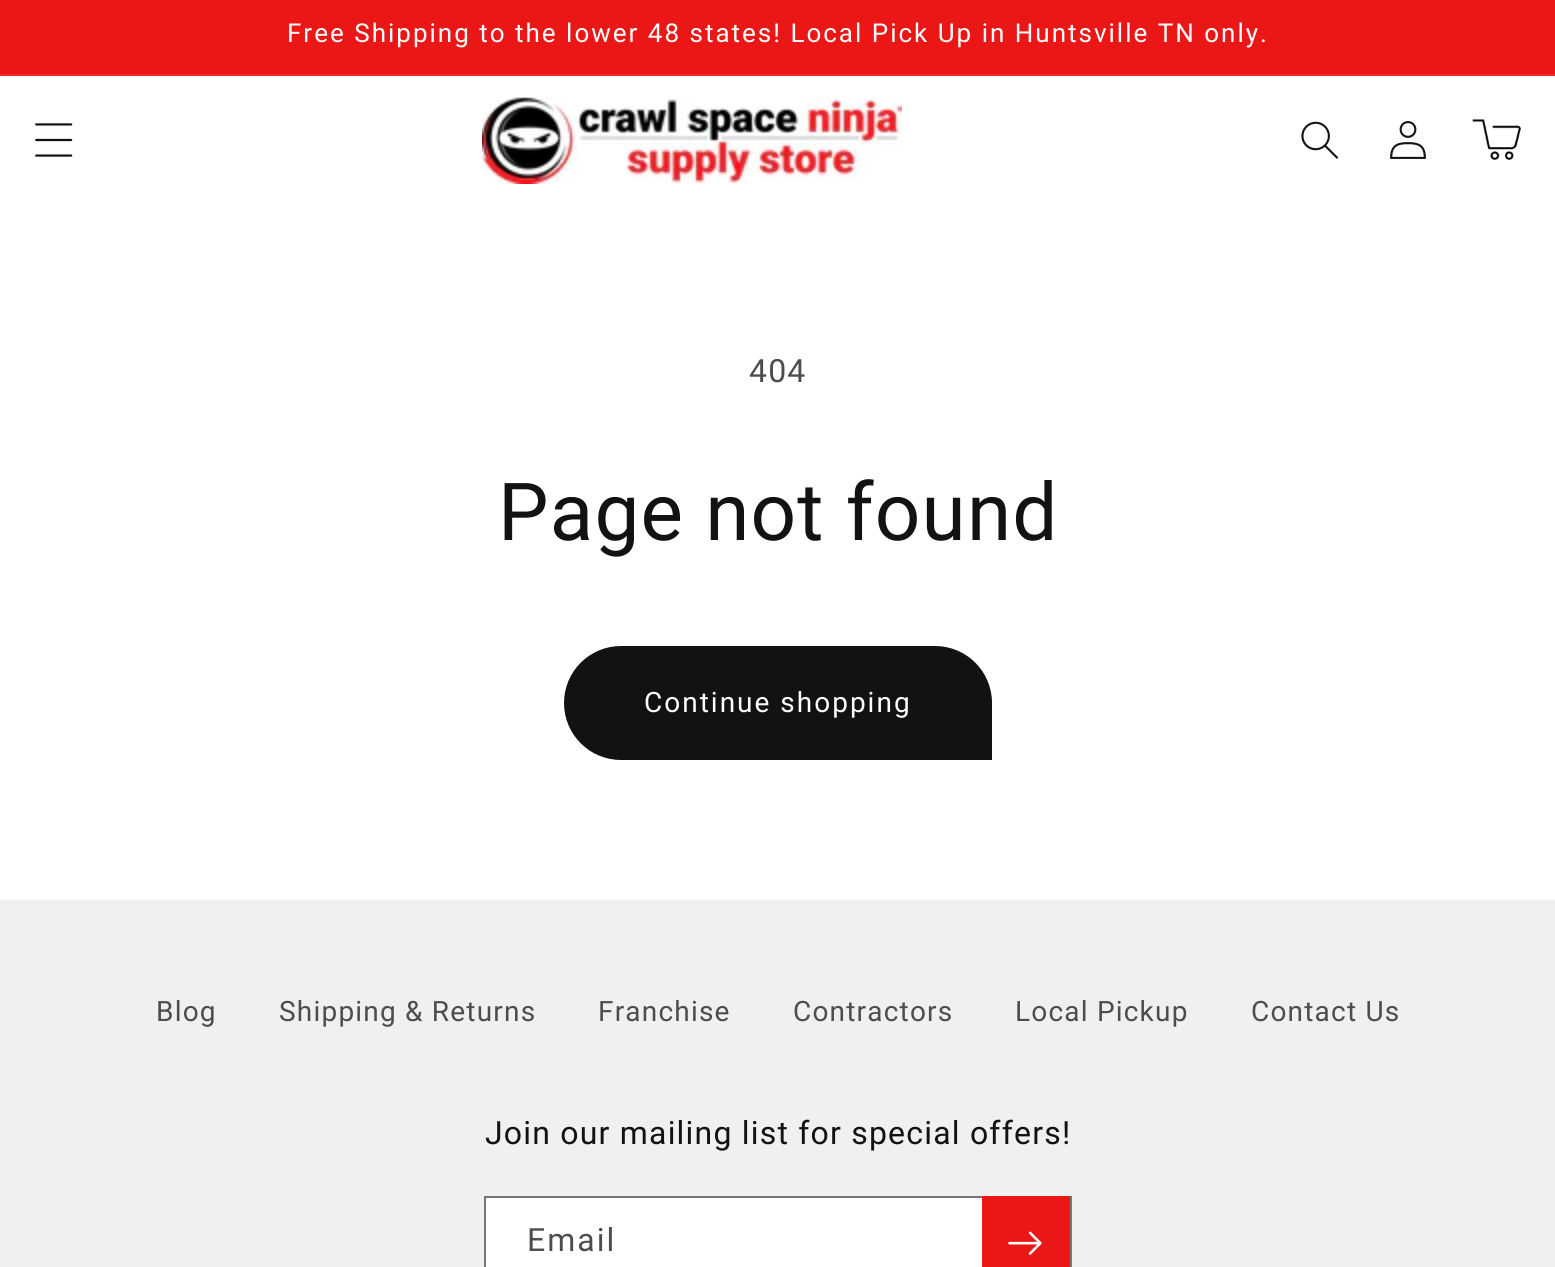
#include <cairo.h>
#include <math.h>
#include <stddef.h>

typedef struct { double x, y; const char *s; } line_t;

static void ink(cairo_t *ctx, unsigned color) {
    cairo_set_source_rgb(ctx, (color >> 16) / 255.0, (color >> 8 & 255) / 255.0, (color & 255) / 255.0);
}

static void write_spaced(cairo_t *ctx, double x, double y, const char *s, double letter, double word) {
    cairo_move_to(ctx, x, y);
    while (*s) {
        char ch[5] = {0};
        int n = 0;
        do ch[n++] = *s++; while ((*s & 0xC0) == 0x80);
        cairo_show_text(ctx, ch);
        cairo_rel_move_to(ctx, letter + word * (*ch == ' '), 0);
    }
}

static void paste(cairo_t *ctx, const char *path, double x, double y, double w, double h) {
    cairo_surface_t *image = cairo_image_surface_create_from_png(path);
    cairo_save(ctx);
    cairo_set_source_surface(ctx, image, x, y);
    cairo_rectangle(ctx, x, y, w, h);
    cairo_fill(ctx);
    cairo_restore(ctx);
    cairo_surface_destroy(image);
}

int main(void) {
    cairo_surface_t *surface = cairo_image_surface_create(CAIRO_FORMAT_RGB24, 1555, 1267);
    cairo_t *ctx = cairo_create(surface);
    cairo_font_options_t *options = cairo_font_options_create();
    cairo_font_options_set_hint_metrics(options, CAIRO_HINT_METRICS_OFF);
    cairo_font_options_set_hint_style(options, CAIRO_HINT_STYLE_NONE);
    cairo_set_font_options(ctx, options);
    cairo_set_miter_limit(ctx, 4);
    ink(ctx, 0xFFFFFF);
    cairo_paint(ctx);
    ink(ctx, 0xEB1717);
    cairo_rectangle(ctx, 0, 0, 1555, 74);
    cairo_fill(ctx);
    ink(ctx, 0xED2A2A);
    cairo_rectangle(ctx, 0, 74, 1555, 2);
    cairo_fill(ctx);
    cairo_select_font_face(ctx, "Roboto", CAIRO_FONT_SLANT_NORMAL, CAIRO_FONT_WEIGHT_NORMAL);
    cairo_set_font_size(ctx, 26);
    ink(ctx, 0xFFFFFF);
    write_spaced(ctx, 287, 42, "Free Shipping to the lower 48 states! Local Pick Up in Huntsville TN only.", 2, 0);
    paste(ctx, "media/1.png", 35, 123, 38, 34);
    paste(ctx, "media/2.png", 482, 97, 420, 87);
    paste(ctx, "media/3.png", 1301, 121, 37, 38);
    paste(ctx, "media/4.png", 1390, 121, 36, 38);
    paste(ctx, "media/5.png", 1472, 119, 49, 41);
    cairo_set_font_size(ctx, 32);
    ink(ctx, 0x4D4D4D);
    write_spaced(ctx, 749, 382, "404", 1.2, 0);
    cairo_set_font_size(ctx, 80);
    ink(ctx, 0x121212);
    write_spaced(ctx, 498, 540, "Page not found", 1.2, 0);
    cairo_new_path(ctx);
    cairo_move_to(ctx, 621, 646);
    cairo_line_to(ctx, 935, 646);
    cairo_curve_to(ctx, 966.5, 646, 992, 671.5, 992, 703);
    cairo_line_to(ctx, 992, 760);
    cairo_line_to(ctx, 621, 760);
    cairo_curve_to(ctx, 589.5, 760, 564, 734.5, 564, 703);
    cairo_curve_to(ctx, 564, 671.5, 589.5, 646, 621, 646);
    cairo_close_path(ctx);
    cairo_fill(ctx);
    cairo_set_font_size(ctx, 28);
    ink(ctx, 0xFFFFFF);
    write_spaced(ctx, 644, 712, "Continue shopping", 2, 0);
    ink(ctx, 0xF0F0F0);
    cairo_rectangle(ctx, 0, 900, 1555, 367);
    cairo_fill(ctx);
    ink(ctx, 0x4D4D4D);
    {
        static const line_t items[] = {
            {156, 1021, "Blog"},
            {279, 1021, "Shipping & Returns"},
            {598, 1021, "Franchise"},
            {793, 1021, "Contractors"},
            {1015, 1021, "Local Pickup"},
            {1251, 1021, "Contact Us"},
        };
        for (size_t i = 0; i < sizeof items / sizeof *items; i++) {
            write_spaced(ctx, items[i].x, items[i].y, items[i].s, 1.2, 0);
        }
    }
    cairo_set_font_size(ctx, 32);
    ink(ctx, 0x121212);
    write_spaced(ctx, 485, 1144, "Join our mailing list for special offers!", 1.2, 0);
    ink(ctx, 0xFFFFFF);
    cairo_rectangle(ctx, 486, 1198, 496, 69);
    cairo_fill(ctx);
    cairo_rectangle(ctx, 485, 1197, 586, 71);
    ink(ctx, 0x767676);
    cairo_stroke(ctx);
    ink(ctx, 0xEB1717);
    cairo_rectangle(ctx, 982, 1196, 88, 71);
    cairo_fill(ctx);
    paste(ctx, "media/6.png", 1008, 1231, 34, 24);
    ink(ctx, 0x4D4D4D);
    write_spaced(ctx, 527, 1251, "Email", 2, 0);
    cairo_surface_write_to_png(surface, "image.png");
    cairo_font_options_destroy(options);
    cairo_destroy(ctx);
    cairo_surface_destroy(surface);
    return 0;
}
